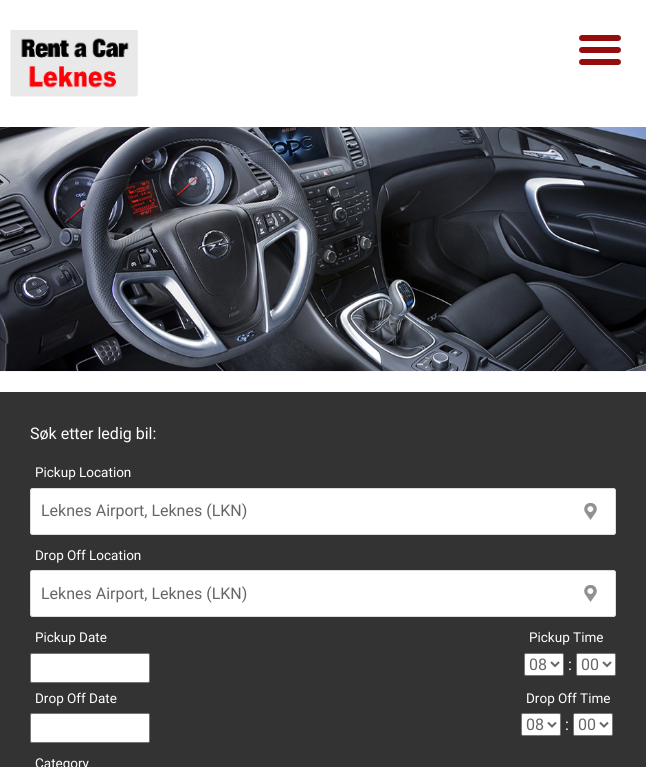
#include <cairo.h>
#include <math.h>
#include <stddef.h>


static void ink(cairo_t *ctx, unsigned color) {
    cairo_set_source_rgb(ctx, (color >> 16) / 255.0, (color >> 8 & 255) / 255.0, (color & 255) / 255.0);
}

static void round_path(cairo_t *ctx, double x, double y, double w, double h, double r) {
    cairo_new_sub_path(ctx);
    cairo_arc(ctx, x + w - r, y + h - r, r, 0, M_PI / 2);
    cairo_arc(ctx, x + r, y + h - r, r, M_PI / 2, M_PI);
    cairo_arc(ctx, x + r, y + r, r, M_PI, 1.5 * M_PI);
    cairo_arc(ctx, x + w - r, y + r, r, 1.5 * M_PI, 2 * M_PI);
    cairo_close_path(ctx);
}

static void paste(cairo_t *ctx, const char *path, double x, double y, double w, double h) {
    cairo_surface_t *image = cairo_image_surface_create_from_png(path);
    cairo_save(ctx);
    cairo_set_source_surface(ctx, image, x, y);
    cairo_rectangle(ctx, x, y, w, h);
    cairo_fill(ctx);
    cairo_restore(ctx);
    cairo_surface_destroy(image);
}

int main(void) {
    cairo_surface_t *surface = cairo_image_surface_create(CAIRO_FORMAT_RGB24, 646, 767);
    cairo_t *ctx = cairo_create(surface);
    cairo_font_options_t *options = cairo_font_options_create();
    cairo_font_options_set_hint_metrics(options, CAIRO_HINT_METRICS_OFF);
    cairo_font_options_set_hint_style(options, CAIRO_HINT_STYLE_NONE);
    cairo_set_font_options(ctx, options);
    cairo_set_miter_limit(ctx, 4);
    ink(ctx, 0xFFFFFF);
    cairo_paint(ctx);
    paste(ctx, "media/1.png", 10, 30, 128, 67);
    ink(ctx, 0x940C0C);
    round_path(ctx, 579, 35, 42, 6, 3);
    cairo_fill(ctx);
    round_path(ctx, 579, 47, 42, 6, 3);
    cairo_fill(ctx);
    round_path(ctx, 579, 59, 42, 6, 3);
    cairo_fill(ctx);
    paste(ctx, "media/2.png", 0, 127, 646, 245);
    ink(ctx, 0x333333);
    cairo_rectangle(ctx, 0, 392, 646, 375);
    cairo_fill(ctx);
    cairo_select_font_face(ctx, "Roboto", CAIRO_FONT_SLANT_NORMAL, CAIRO_FONT_WEIGHT_NORMAL);
    cairo_set_font_size(ctx, 16);
    ink(ctx, 0xFFFFFF);
    cairo_move_to(ctx, 30, 439);
    cairo_show_text(ctx, "Søk etter ledig bil:");
    cairo_set_font_size(ctx, 13.5);
    cairo_move_to(ctx, 35, 477);
    cairo_show_text(ctx, "Pickup Location");
    round_path(ctx, 30, 488, 586, 47, 3);
    cairo_fill(ctx);
    paste(ctx, "media/3.png", 584, 503, 13, 17);
    round_path(ctx, 30.5, 488.5, 585, 46, 2.5);
    ink(ctx, 0xDDDDDD);
    cairo_set_line_width(ctx, 1);
    cairo_stroke(ctx);
    cairo_set_font_size(ctx, 16);
    ink(ctx, 0x666666);
    cairo_move_to(ctx, 41, 516);
    cairo_show_text(ctx, "Leknes Airport, Leknes (LKN)");
    cairo_set_font_size(ctx, 13.5);
    ink(ctx, 0xFFFFFF);
    cairo_move_to(ctx, 35, 560);
    cairo_show_text(ctx, "Drop Off Location");
    round_path(ctx, 30, 570, 586, 47, 3);
    cairo_fill(ctx);
    paste(ctx, "media/3.png", 584, 585, 13, 17);
    round_path(ctx, 30.5, 570.5, 585, 46, 2.5);
    ink(ctx, 0xDDDDDD);
    cairo_stroke(ctx);
    cairo_set_font_size(ctx, 16);
    ink(ctx, 0x666666);
    cairo_move_to(ctx, 41, 599);
    cairo_show_text(ctx, "Leknes Airport, Leknes (LKN)");
    cairo_set_font_size(ctx, 13.5);
    ink(ctx, 0xFFFFFF);
    cairo_move_to(ctx, 35, 642);
    cairo_show_text(ctx, "Pickup Date");
    round_path(ctx, 30.5, 653.5, 119, 29, 1.5);
    cairo_fill_preserve(ctx);
    ink(ctx, 0x767676);
    cairo_stroke(ctx);
    ink(ctx, 0xFFFFFF);
    cairo_move_to(ctx, 529, 642);
    cairo_show_text(ctx, "Pickup Time");
    round_path(ctx, 524.5, 653.5, 39, 22, 1.5);
    cairo_fill_preserve(ctx);
    ink(ctx, 0x767676);
    cairo_stroke(ctx);
    cairo_new_path(ctx);
    cairo_move_to(ctx, 551, 662);
    cairo_line_to(ctx, 555, 666);
    cairo_line_to(ctx, 559, 662);
    ink(ctx, 0x666666);
    cairo_set_line_width(ctx, 2);
    cairo_stroke(ctx);
    cairo_set_font_size(ctx, 16);
    cairo_move_to(ctx, 529, 670);
    cairo_show_text(ctx, "08");
    ink(ctx, 0xFFFFFF);
    cairo_move_to(ctx, 568, 670);
    cairo_show_text(ctx, ":");
    round_path(ctx, 576.5, 653.5, 39, 22, 1.5);
    cairo_fill_preserve(ctx);
    ink(ctx, 0x767676);
    cairo_set_line_width(ctx, 1);
    cairo_stroke(ctx);
    cairo_new_path(ctx);
    cairo_move_to(ctx, 603, 662);
    cairo_line_to(ctx, 607, 666);
    cairo_line_to(ctx, 611, 662);
    ink(ctx, 0x666666);
    cairo_set_line_width(ctx, 2);
    cairo_stroke(ctx);
    cairo_move_to(ctx, 581, 670);
    cairo_show_text(ctx, "00");
    cairo_set_font_size(ctx, 13.5);
    ink(ctx, 0xFFFFFF);
    cairo_move_to(ctx, 35, 703);
    cairo_show_text(ctx, "Drop Off Date");
    round_path(ctx, 30.5, 713.5, 119, 29, 1.5);
    cairo_fill_preserve(ctx);
    ink(ctx, 0x767676);
    cairo_set_line_width(ctx, 1);
    cairo_stroke(ctx);
    ink(ctx, 0xFFFFFF);
    cairo_move_to(ctx, 526, 703);
    cairo_show_text(ctx, "Drop Off Time");
    round_path(ctx, 521.5, 713.5, 39, 22, 1.5);
    cairo_fill_preserve(ctx);
    ink(ctx, 0x767676);
    cairo_stroke(ctx);
    cairo_new_path(ctx);
    cairo_move_to(ctx, 548, 722.5);
    cairo_line_to(ctx, 552, 726.5);
    cairo_line_to(ctx, 556, 722.5);
    ink(ctx, 0x666666);
    cairo_set_line_width(ctx, 2);
    cairo_stroke(ctx);
    cairo_set_font_size(ctx, 16);
    cairo_move_to(ctx, 526, 730);
    cairo_show_text(ctx, "08");
    ink(ctx, 0xFFFFFF);
    cairo_move_to(ctx, 565, 730);
    cairo_show_text(ctx, ":");
    round_path(ctx, 573.5, 713.5, 39, 22, 1.5);
    cairo_fill_preserve(ctx);
    ink(ctx, 0x767676);
    cairo_set_line_width(ctx, 1);
    cairo_stroke(ctx);
    cairo_new_path(ctx);
    cairo_move_to(ctx, 600, 722.5);
    cairo_line_to(ctx, 604, 726.5);
    cairo_line_to(ctx, 608, 722.5);
    ink(ctx, 0x666666);
    cairo_set_line_width(ctx, 2);
    cairo_stroke(ctx);
    cairo_move_to(ctx, 578, 730);
    cairo_show_text(ctx, "00");
    cairo_set_font_size(ctx, 13.5);
    ink(ctx, 0xFFFFFF);
    cairo_move_to(ctx, 35, 768);
    cairo_show_text(ctx, "Category");
    cairo_surface_write_to_png(surface, "image.png");
    cairo_font_options_destroy(options);
    cairo_destroy(ctx);
    cairo_surface_destroy(surface);
    return 0;
}
